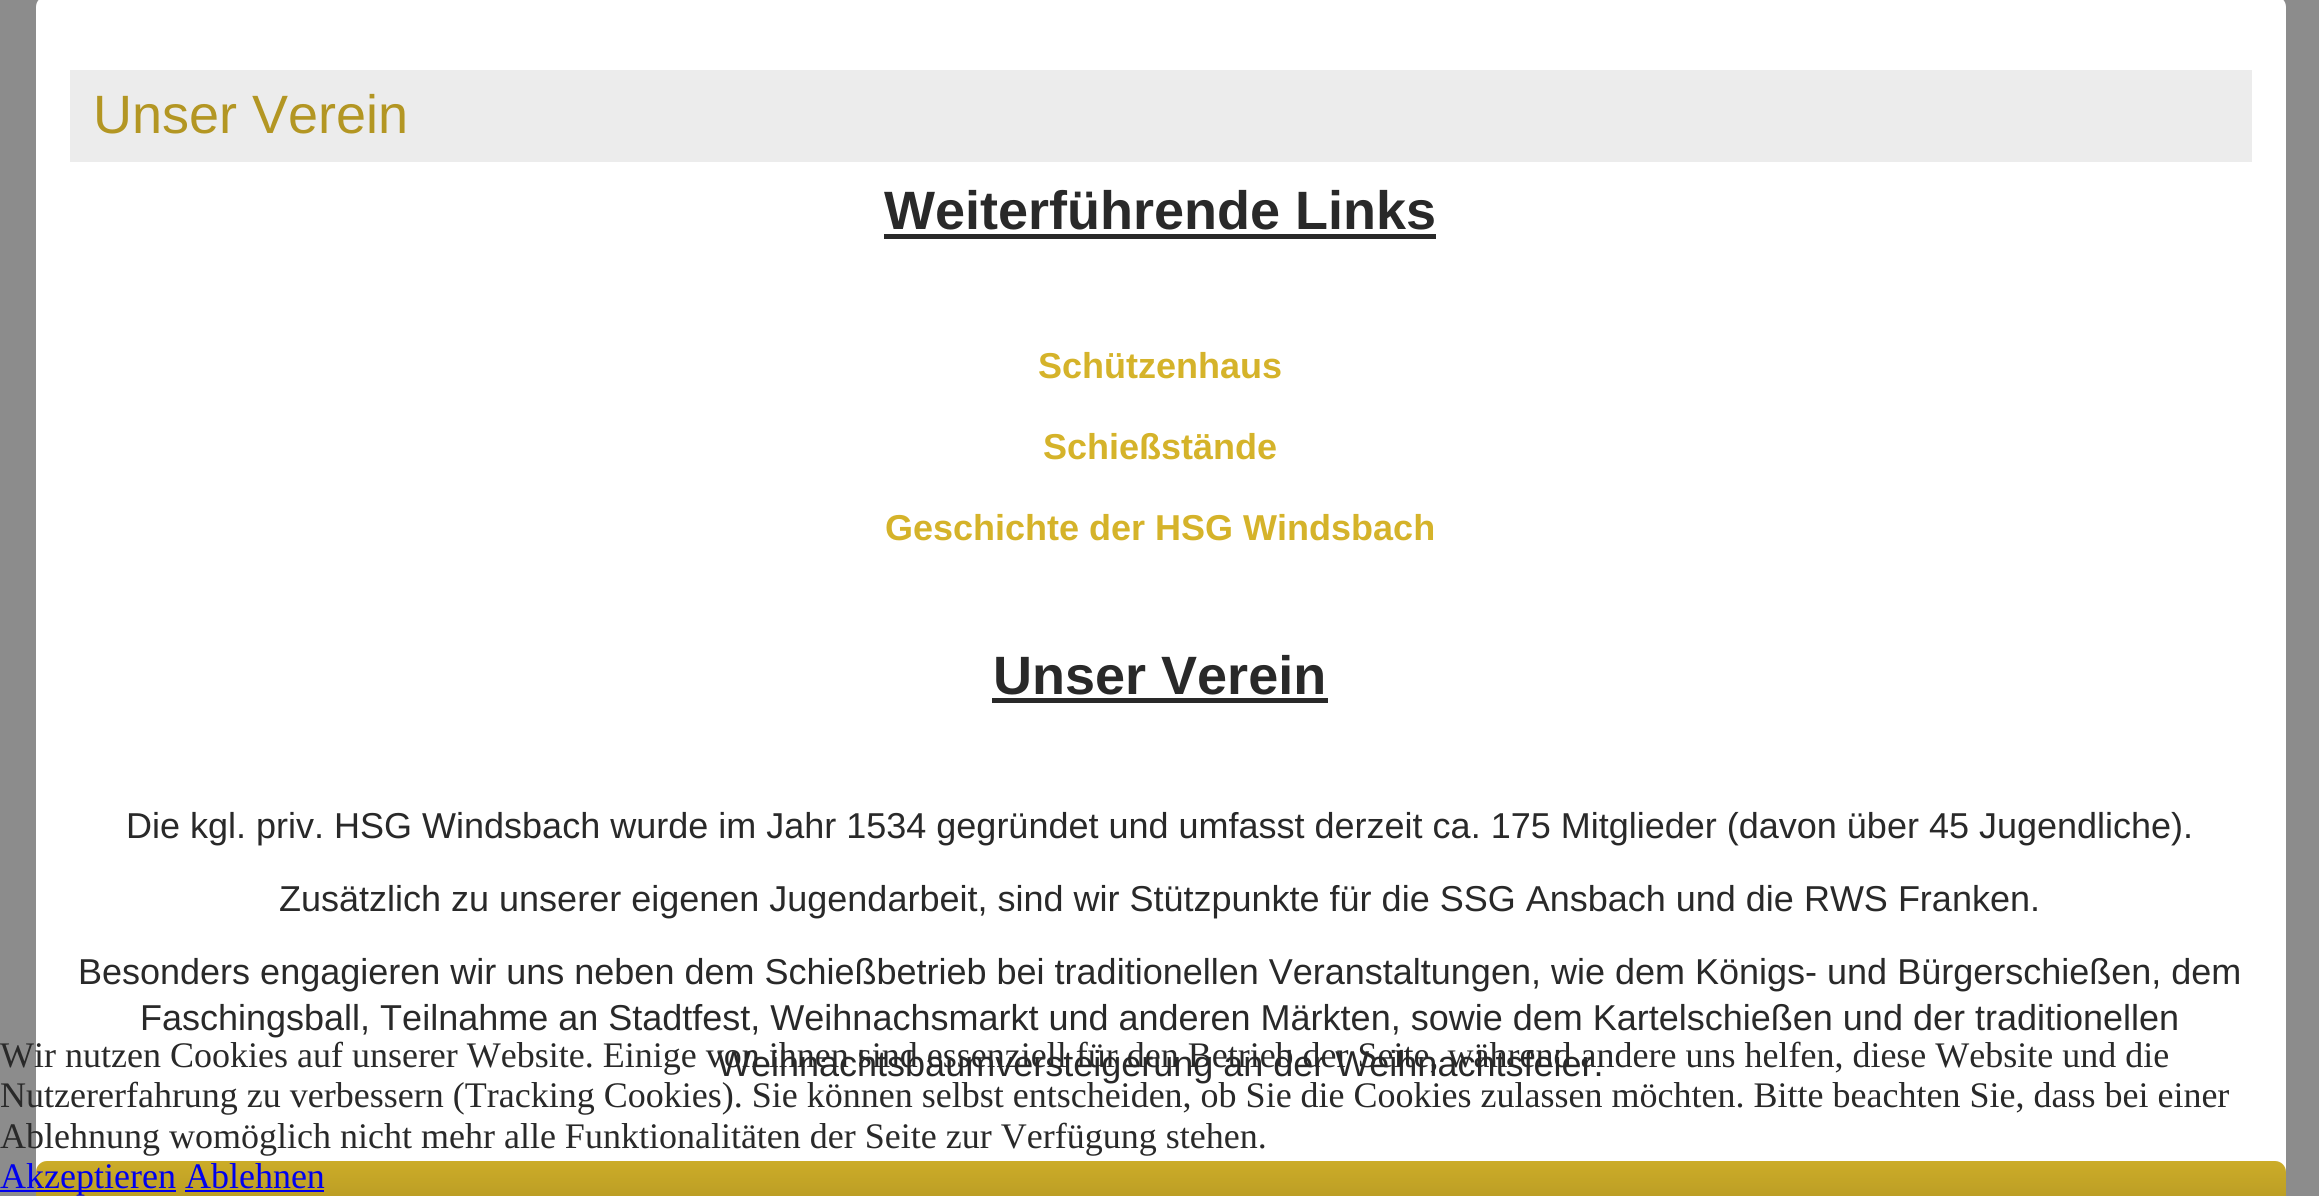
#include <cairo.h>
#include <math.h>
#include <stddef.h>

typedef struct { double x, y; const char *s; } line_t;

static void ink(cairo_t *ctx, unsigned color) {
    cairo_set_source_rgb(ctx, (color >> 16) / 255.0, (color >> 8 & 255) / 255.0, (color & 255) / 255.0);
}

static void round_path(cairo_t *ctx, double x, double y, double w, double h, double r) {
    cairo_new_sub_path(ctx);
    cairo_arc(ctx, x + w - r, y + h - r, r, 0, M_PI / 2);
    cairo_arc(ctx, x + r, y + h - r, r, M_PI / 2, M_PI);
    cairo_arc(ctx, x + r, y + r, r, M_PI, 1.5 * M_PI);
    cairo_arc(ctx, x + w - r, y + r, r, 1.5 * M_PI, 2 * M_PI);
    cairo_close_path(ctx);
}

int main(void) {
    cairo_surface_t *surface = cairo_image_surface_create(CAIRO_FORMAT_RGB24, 2319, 1196);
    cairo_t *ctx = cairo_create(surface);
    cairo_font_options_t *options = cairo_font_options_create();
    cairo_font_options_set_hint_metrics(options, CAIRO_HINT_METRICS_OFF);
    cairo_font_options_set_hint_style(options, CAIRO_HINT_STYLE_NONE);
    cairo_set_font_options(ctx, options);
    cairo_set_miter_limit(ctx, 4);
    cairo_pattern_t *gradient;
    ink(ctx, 0x8C8C8C);
    cairo_paint(ctx);
    ink(ctx, 0xFFFFFF);
    round_path(ctx, 36, -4, 2250, 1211, 11);
    cairo_fill(ctx);
    ink(ctx, 0xECECEC);
    cairo_rectangle(ctx, 70, 70, 2182, 92);
    cairo_fill(ctx);
    cairo_select_font_face(ctx, "Liberation Sans", CAIRO_FONT_SLANT_NORMAL, CAIRO_FONT_WEIGHT_NORMAL);
    cairo_set_font_size(ctx, 54);
    ink(ctx, 0xB39623);
    cairo_move_to(ctx, 93, 133);
    cairo_show_text(ctx, "Unser Verein");
    cairo_select_font_face(ctx, "Liberation Sans", CAIRO_FONT_SLANT_NORMAL, CAIRO_FONT_WEIGHT_BOLD);
    ink(ctx, 0x292929);
    cairo_move_to(ctx, 884, 229);
    cairo_show_text(ctx, "Weiterführende Links");
    cairo_rectangle(ctx, 884, 234, 552, 5);
    cairo_fill(ctx);
    cairo_set_font_size(ctx, 36);
    ink(ctx, 0xD5B32A);
    {
        static const line_t items[] = {
            {1038, 378, "Schützenhaus"},
            {1043, 459, "Schießstände"},
            {885, 540, "Geschichte der HSG Windsbach"},
        };
        for (size_t i = 0; i < sizeof items / sizeof *items; i++) {
            cairo_move_to(ctx, items[i].x, items[i].y);
            cairo_show_text(ctx, items[i].s);
        }
    }
    cairo_set_font_size(ctx, 54);
    ink(ctx, 0x292929);
    cairo_move_to(ctx, 993, 694);
    cairo_show_text(ctx, "Unser Verein");
    cairo_rectangle(ctx, 992, 698, 336, 5);
    cairo_fill(ctx);
    cairo_select_font_face(ctx, "Liberation Sans", CAIRO_FONT_SLANT_NORMAL, CAIRO_FONT_WEIGHT_NORMAL);
    cairo_set_font_size(ctx, 36);
    {
        static const line_t items[] = {
            {126, 838, "Die kgl. priv. HSG Windsbach wurde im Jahr 1534 gegründet und umfasst derzeit ca. 175 Mitglieder (davon über 45 Jugendliche)."},
            {279, 911, "Zusätzlich zu unserer eigenen Jugendarbeit, sind wir Stützpunkte für die SSG Ansbach und die RWS Franken."},
            {78, 984, "Besonders engagieren wir uns neben dem Schießbetrieb bei traditionellen Veranstaltungen, wie dem Königs- und Bürgerschießen, dem"},
            {140, 1030, "Faschingsball, Teilnahme an Stadtfest, Weihnachsmarkt und anderen Märkten, sowie dem Kartelschießen und der traditionellen"},
            {717, 1076, "Weihnachtsbaumversteigerung an der Weihnachtsfeier."},
        };
        for (size_t i = 0; i < sizeof items / sizeof *items; i++) {
            cairo_move_to(ctx, items[i].x, items[i].y);
            cairo_show_text(ctx, items[i].s);
        }
    }
    gradient = cairo_pattern_create_linear(1161, 1161, 1161, 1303);
    cairo_pattern_add_color_stop_rgba(gradient, 0, 0.8, 0.675, 0.157, 1);
    cairo_pattern_add_color_stop_rgba(gradient, 0.4, 0.702, 0.588, 0.137, 1);
    cairo_pattern_add_color_stop_rgba(gradient, 0.6, 0.702, 0.588, 0.137, 1);
    cairo_pattern_add_color_stop_rgba(gradient, 1, 0.8, 0.675, 0.157, 1);
    cairo_set_source(ctx, gradient);
    cairo_pattern_destroy(gradient);
    round_path(ctx, 36, 1161, 2250, 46, 11);
    cairo_fill(ctx);
    cairo_select_font_face(ctx, "Liberation Serif", CAIRO_FONT_SLANT_NORMAL, CAIRO_FONT_WEIGHT_NORMAL);
    ink(ctx, 0x292929);
    {
        static const line_t items[] = {
            {0, 1067, "Wir nutzen Cookies auf unserer Website. Einige von ihnen sind essenziell für den Betrieb der Seite, während andere uns helfen, diese Website und die"},
            {0, 1107, "Nutzererfahrung zu verbessern (Tracking Cookies). Sie können selbst entscheiden, ob Sie die Cookies zulassen möchten. Bitte beachten Sie, dass bei einer"},
            {0, 1148, "Ablehnung womöglich nicht mehr alle Funktionalitäten der Seite zur Verfügung stehen."},
        };
        for (size_t i = 0; i < sizeof items / sizeof *items; i++) {
            cairo_move_to(ctx, items[i].x, items[i].y);
            cairo_show_text(ctx, items[i].s);
        }
    }
    ink(ctx, 0x0000EE);
    cairo_rectangle(ctx, 0, 1190, 176, 2);
    cairo_fill(ctx);
    cairo_move_to(ctx, 0, 1188);
    cairo_show_text(ctx, "Akzeptieren Ablehnen");
    cairo_rectangle(ctx, 185, 1190, 139, 2);
    cairo_fill(ctx);
    cairo_surface_write_to_png(surface, "image.png");
    cairo_font_options_destroy(options);
    cairo_destroy(ctx);
    cairo_surface_destroy(surface);
    return 0;
}
